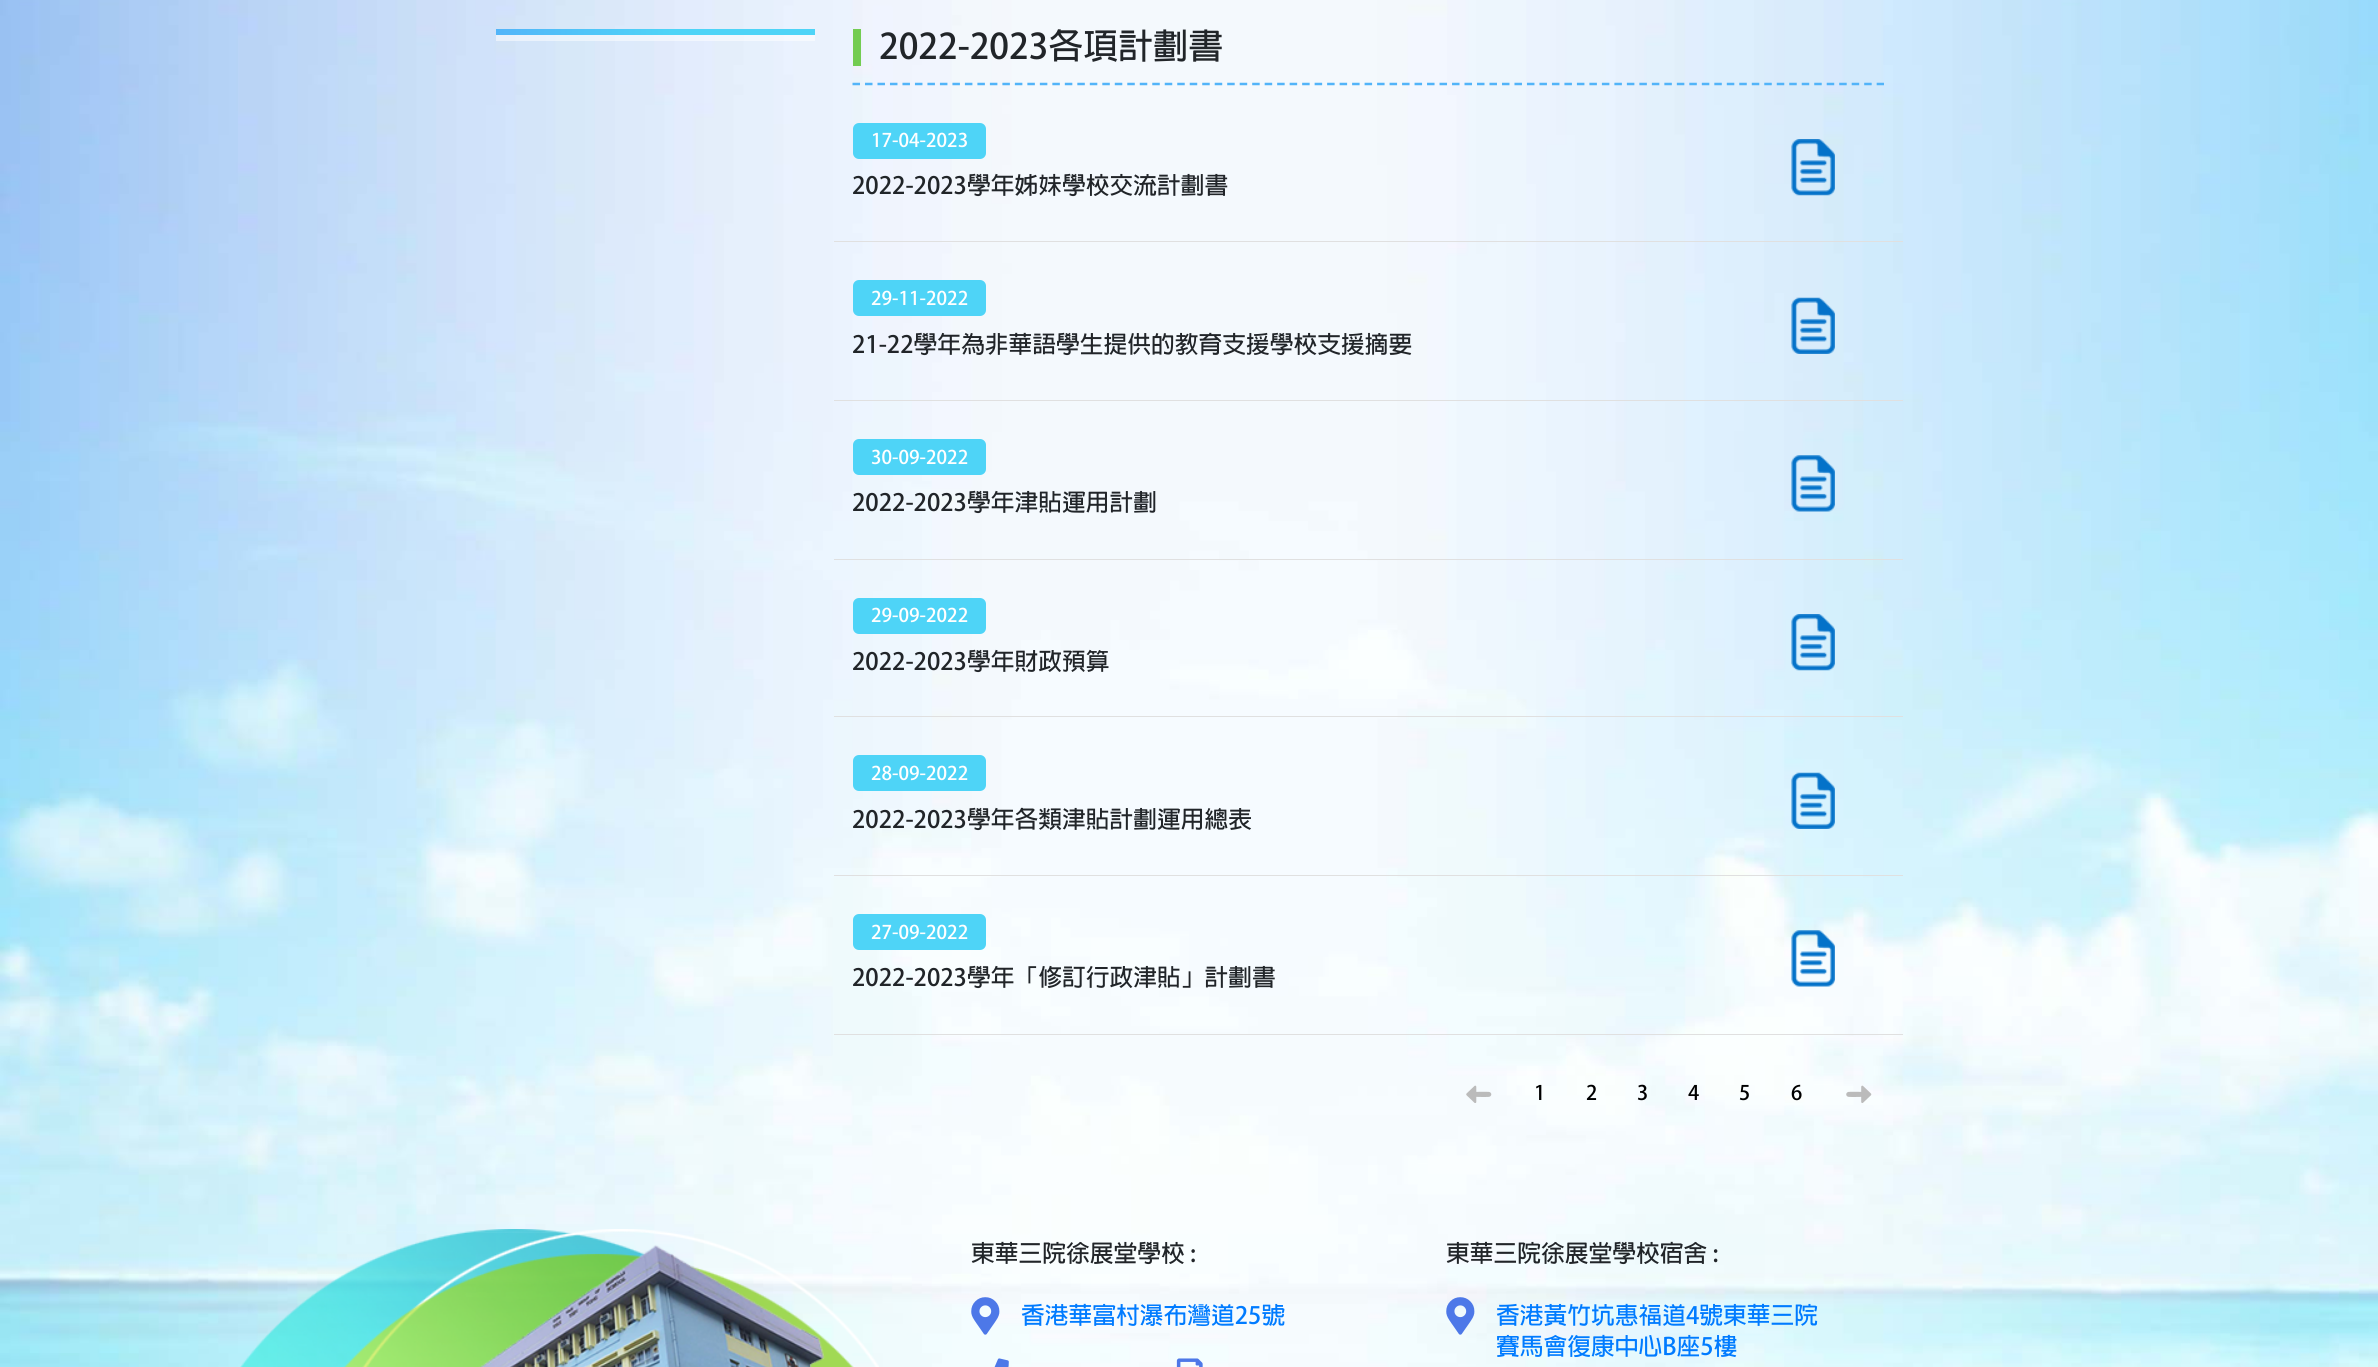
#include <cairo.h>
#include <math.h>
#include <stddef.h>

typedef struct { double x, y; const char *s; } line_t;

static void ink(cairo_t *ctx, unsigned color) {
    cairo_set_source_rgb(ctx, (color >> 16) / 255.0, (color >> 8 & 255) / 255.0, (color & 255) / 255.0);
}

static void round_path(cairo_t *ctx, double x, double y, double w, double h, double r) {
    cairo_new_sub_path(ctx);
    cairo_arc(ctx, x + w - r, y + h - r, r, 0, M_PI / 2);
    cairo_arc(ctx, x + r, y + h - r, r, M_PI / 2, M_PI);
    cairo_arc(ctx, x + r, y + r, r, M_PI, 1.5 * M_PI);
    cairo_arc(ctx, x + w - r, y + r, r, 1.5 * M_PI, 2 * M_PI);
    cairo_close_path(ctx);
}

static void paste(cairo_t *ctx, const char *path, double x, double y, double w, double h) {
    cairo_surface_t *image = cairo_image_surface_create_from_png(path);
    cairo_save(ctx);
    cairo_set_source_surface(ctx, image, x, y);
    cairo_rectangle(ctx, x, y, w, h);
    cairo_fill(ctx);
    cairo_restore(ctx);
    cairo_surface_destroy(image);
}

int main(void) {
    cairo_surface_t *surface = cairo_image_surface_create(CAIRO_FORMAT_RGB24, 2378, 1367);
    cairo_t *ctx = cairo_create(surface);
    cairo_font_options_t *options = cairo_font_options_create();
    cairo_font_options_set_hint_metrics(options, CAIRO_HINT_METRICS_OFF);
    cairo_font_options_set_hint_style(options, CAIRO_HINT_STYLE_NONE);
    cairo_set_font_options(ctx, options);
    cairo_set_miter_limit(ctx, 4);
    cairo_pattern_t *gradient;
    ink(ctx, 0xFFFFFF);
    cairo_paint(ctx);
    paste(ctx, "media/1.png", 0, 0, 2378, 1367);
    cairo_set_source_rgba(ctx, 1, 1, 1, 0.5);
    cairo_rectangle(ctx, 496, 35, 319, 6);
    cairo_fill(ctx);
    gradient = cairo_pattern_create_linear(496, 32, 815, 32);
    cairo_pattern_add_color_stop_rgba(gradient, 0, 0.322, 0.71, 0.976, 1);
    cairo_pattern_add_color_stop_rgba(gradient, 0.55, 0.306, 0.831, 0.969, 1);
    cairo_pattern_add_color_stop_rgba(gradient, 1, 0.306, 0.831, 0.969, 1);
    cairo_set_source(ctx, gradient);
    cairo_pattern_destroy(gradient);
    cairo_rectangle(ctx, 496, 29, 319, 6);
    cairo_fill(ctx);
    cairo_new_path(ctx);
    cairo_move_to(ctx, 852.5, 84);
    cairo_line_to(ctx, 1884, 84);
    ink(ctx, 0x52B4F9);
    cairo_set_line_width(ctx, 2.5);
    cairo_set_dash(ctx, (double[]){7.5, 4.99}, 2, 0);
    cairo_stroke(ctx);
    ink(ctx, 0x73CC51);
    cairo_rectangle(ctx, 853, 29, 8, 37);
    cairo_fill(ctx);
    cairo_select_font_face(ctx, "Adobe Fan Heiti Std", CAIRO_FONT_SLANT_NORMAL, CAIRO_FONT_WEIGHT_BOLD);
    cairo_set_font_size(ctx, 35);
    ink(ctx, 0x212529);
    cairo_move_to(ctx, 879, 59);
    cairo_show_text(ctx, "2022-2023各項計劃書");
    ink(ctx, 0xE0E0E0);
    cairo_rectangle(ctx, 834, 241, 1069, 1);
    cairo_fill(ctx);
    ink(ctx, 0x4ED4F7);
    round_path(ctx, 853, 123, 133, 36, 6);
    cairo_fill(ctx);
    cairo_set_font_size(ctx, 18.75);
    ink(ctx, 0xFFFFFF);
    cairo_move_to(ctx, 871, 147);
    cairo_show_text(ctx, "17-04-2023");
    cairo_set_font_size(ctx, 23.75);
    ink(ctx, 0x212529);
    cairo_move_to(ctx, 852, 194);
    cairo_show_text(ctx, "2022-2023學年姊妹學校交流計劃書");
    paste(ctx, "media/2.png", 1791, 139, 44, 57);
    ink(ctx, 0xE0E0E0);
    cairo_rectangle(ctx, 834, 400, 1069, 1);
    cairo_fill(ctx);
    ink(ctx, 0x4ED4F7);
    round_path(ctx, 853, 280, 133, 36, 6);
    cairo_fill(ctx);
    cairo_set_font_size(ctx, 18.75);
    ink(ctx, 0xFFFFFF);
    cairo_move_to(ctx, 871, 305);
    cairo_show_text(ctx, "29-11-2022");
    cairo_set_font_size(ctx, 23.75);
    ink(ctx, 0x212529);
    cairo_move_to(ctx, 852, 353);
    cairo_show_text(ctx, "21-22學年為非華語學生提供的教育支援學校支援摘要");
    paste(ctx, "media/3.png", 1791, 297, 44, 57);
    ink(ctx, 0xE0E0E0);
    cairo_rectangle(ctx, 834, 559, 1069, 1);
    cairo_fill(ctx);
    ink(ctx, 0x4ED4F7);
    round_path(ctx, 853, 439, 133, 36, 6);
    cairo_fill(ctx);
    cairo_set_font_size(ctx, 18.75);
    ink(ctx, 0xFFFFFF);
    cairo_move_to(ctx, 871, 464);
    cairo_show_text(ctx, "30-09-2022");
    cairo_set_font_size(ctx, 23.75);
    ink(ctx, 0x212529);
    cairo_move_to(ctx, 852, 511);
    cairo_show_text(ctx, "2022-2023學年津貼運用計劃");
    paste(ctx, "media/4.png", 1791, 455, 44, 57);
    ink(ctx, 0xE0E0E0);
    cairo_rectangle(ctx, 834, 716, 1069, 1);
    cairo_fill(ctx);
    ink(ctx, 0x4ED4F7);
    round_path(ctx, 853, 598, 133, 36, 6);
    cairo_fill(ctx);
    cairo_set_font_size(ctx, 18.75);
    ink(ctx, 0xFFFFFF);
    cairo_move_to(ctx, 871, 622);
    cairo_show_text(ctx, "29-09-2022");
    cairo_set_font_size(ctx, 23.75);
    ink(ctx, 0x212529);
    cairo_move_to(ctx, 852, 670);
    cairo_show_text(ctx, "2022-2023學年財政預算");
    paste(ctx, "media/5.png", 1791, 614, 44, 57);
    ink(ctx, 0xE0E0E0);
    cairo_rectangle(ctx, 834, 875, 1069, 1);
    cairo_fill(ctx);
    ink(ctx, 0x4ED4F7);
    round_path(ctx, 853, 755, 133, 36, 6);
    cairo_fill(ctx);
    cairo_set_font_size(ctx, 18.75);
    ink(ctx, 0xFFFFFF);
    cairo_move_to(ctx, 871, 780);
    cairo_show_text(ctx, "28-09-2022");
    cairo_set_font_size(ctx, 23.75);
    ink(ctx, 0x212529);
    cairo_move_to(ctx, 852, 828);
    cairo_show_text(ctx, "2022-2023學年各類津貼計劃運用總表");
    paste(ctx, "media/6.png", 1791, 772, 44, 57);
    ink(ctx, 0xE0E0E0);
    cairo_rectangle(ctx, 834, 1034, 1069, 1);
    cairo_fill(ctx);
    ink(ctx, 0x4ED4F7);
    round_path(ctx, 853, 914, 133, 36, 6);
    cairo_fill(ctx);
    cairo_set_font_size(ctx, 18.75);
    ink(ctx, 0xFFFFFF);
    cairo_move_to(ctx, 871, 939);
    cairo_show_text(ctx, "27-09-2022");
    cairo_set_font_size(ctx, 23.75);
    ink(ctx, 0x212529);
    cairo_move_to(ctx, 852, 986);
    cairo_show_text(ctx, "2022-2023學年「修訂行政津貼」計劃書");
    paste(ctx, "media/7.png", 1791, 930, 44, 57);
    paste(ctx, "media/8.png", 1466, 1085, 26, 18);
    cairo_set_font_size(ctx, 20);
    ink(ctx, 0x000000);
    {
        static const line_t items[] = {
            {1534, 1100, "1"},
            {1586, 1100, "2"},
            {1637, 1100, "3"},
            {1688, 1100, "4"},
            {1739, 1100, "5"},
            {1791, 1100, "6"},
        };
        for (size_t i = 0; i < sizeof items / sizeof *items; i++) {
            cairo_move_to(ctx, items[i].x, items[i].y);
            cairo_show_text(ctx, items[i].s);
        }
    }
    paste(ctx, "media/9.png", 1846, 1085, 26, 18);
    paste(ctx, "media/10.png", 240, 1229, 639, 138);
    cairo_set_font_size(ctx, 23.75);
    ink(ctx, 0x212529);
    cairo_move_to(ctx, 971, 1262);
    cairo_show_text(ctx, "東華三院徐展堂學校 :");
    paste(ctx, "media/11.png", 971, 1297, 29, 38);
    ink(ctx, 0x007BFF);
    cairo_move_to(ctx, 1021, 1324);
    cairo_show_text(ctx, "香港華富村瀑布灣道25號");
    paste(ctx, "media/12.png", 994, 1358, 15, 9);
    paste(ctx, "media/13.png", 1176, 1358, 27, 9);
    ink(ctx, 0x212529);
    cairo_move_to(ctx, 1446, 1262);
    cairo_show_text(ctx, "東華三院徐展堂學校宿舍 :");
    paste(ctx, "media/14.png", 1446, 1297, 29, 38);
    ink(ctx, 0x007BFF);
    cairo_move_to(ctx, 1496, 1324);
    cairo_show_text(ctx, "香港黃竹坑惠福道4號東華三院");
    cairo_move_to(ctx, 1496, 1355);
    cairo_show_text(ctx, "賽馬會復康中心B座5樓");
    cairo_surface_write_to_png(surface, "image.png");
    cairo_font_options_destroy(options);
    cairo_destroy(ctx);
    cairo_surface_destroy(surface);
    return 0;
}
